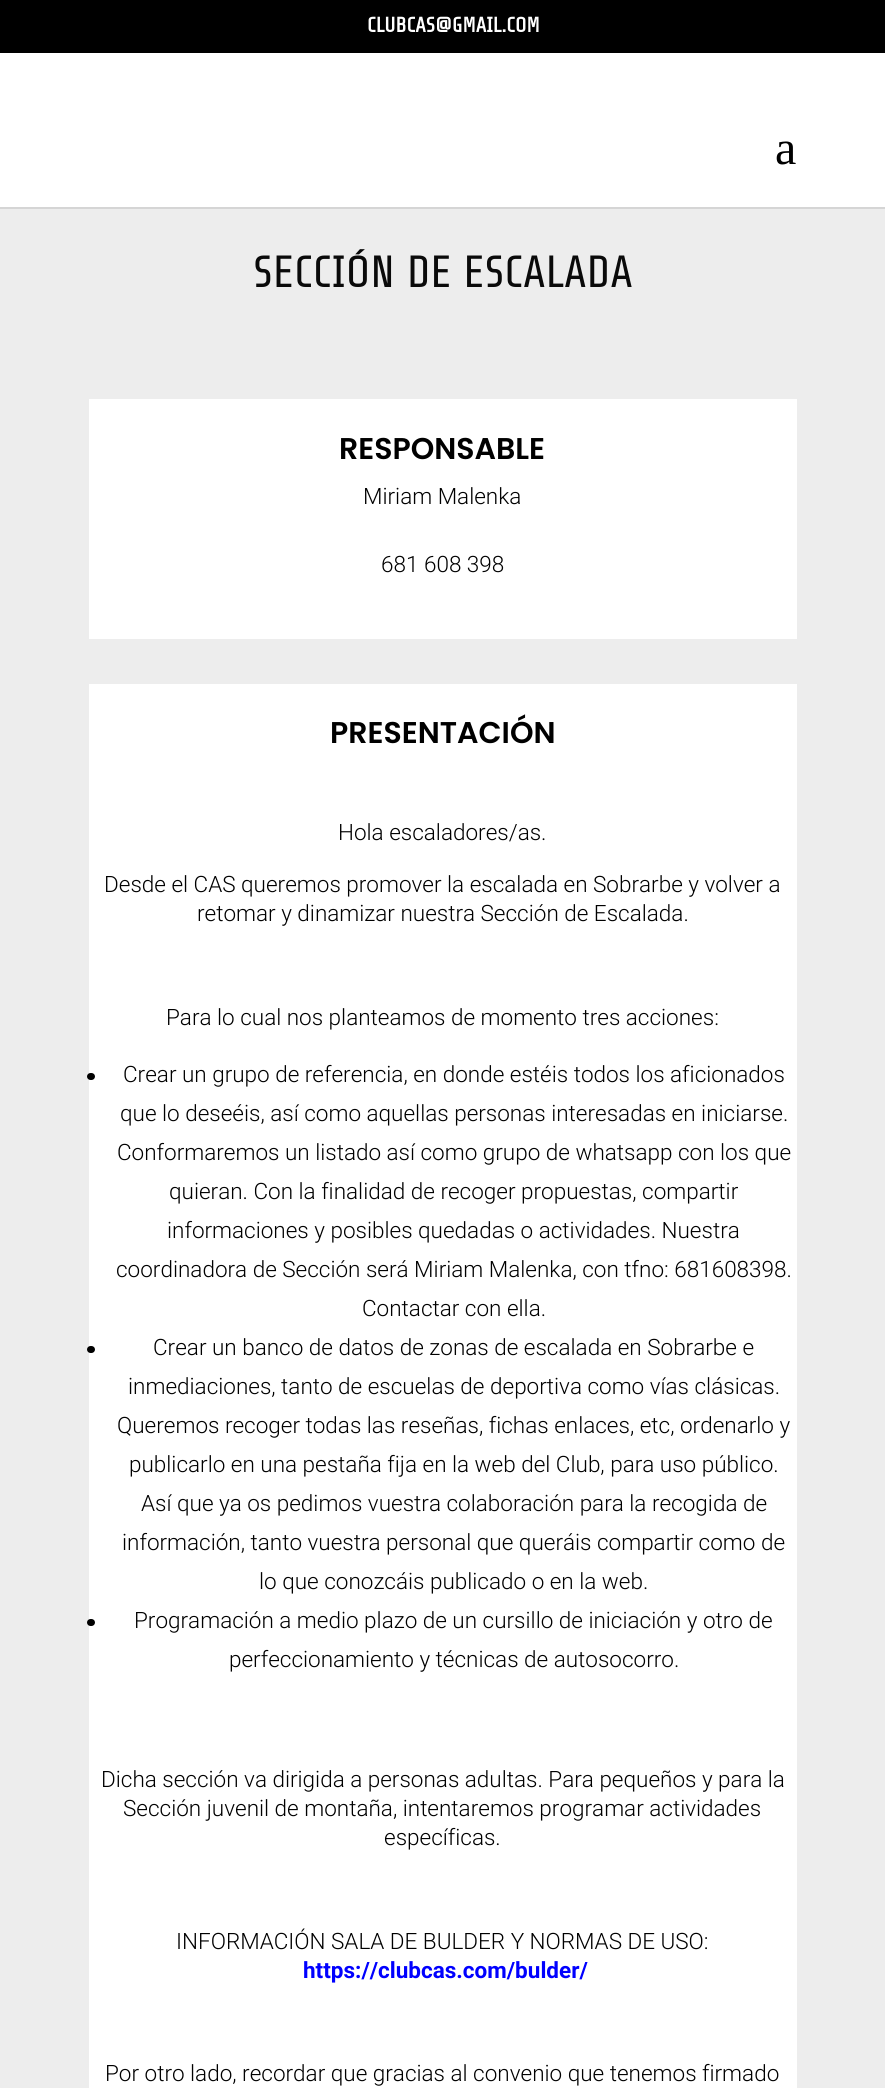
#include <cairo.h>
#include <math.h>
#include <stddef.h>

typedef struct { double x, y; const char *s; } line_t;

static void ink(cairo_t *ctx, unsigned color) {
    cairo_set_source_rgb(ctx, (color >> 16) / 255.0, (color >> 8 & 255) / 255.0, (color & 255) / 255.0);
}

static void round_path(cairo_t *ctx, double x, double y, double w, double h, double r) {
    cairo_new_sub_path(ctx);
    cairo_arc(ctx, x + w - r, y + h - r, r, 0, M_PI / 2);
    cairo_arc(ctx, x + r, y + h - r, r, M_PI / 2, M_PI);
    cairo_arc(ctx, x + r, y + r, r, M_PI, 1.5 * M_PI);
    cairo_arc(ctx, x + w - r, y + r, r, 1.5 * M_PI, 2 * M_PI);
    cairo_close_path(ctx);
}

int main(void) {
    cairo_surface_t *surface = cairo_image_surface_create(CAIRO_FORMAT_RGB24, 885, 2088);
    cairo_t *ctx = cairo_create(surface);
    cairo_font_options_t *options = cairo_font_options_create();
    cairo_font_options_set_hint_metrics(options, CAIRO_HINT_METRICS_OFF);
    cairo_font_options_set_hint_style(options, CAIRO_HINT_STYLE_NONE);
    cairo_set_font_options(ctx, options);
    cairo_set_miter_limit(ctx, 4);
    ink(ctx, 0xFFFFFF);
    cairo_paint(ctx);
    ink(ctx, 0x000000);
    cairo_rectangle(ctx, 0, 0, 885, 53);
    cairo_fill(ctx);
    cairo_select_font_face(ctx, "Share Tech", CAIRO_FONT_SLANT_NORMAL, CAIRO_FONT_WEIGHT_BOLD);
    cairo_set_font_size(ctx, 21);
    ink(ctx, 0xFFFFFF);
    cairo_move_to(ctx, 367, 32);
    cairo_show_text(ctx, "CLUBCAS@GMAIL.COM");
    ink(ctx, 0xD5D5D5);
    cairo_rectangle(ctx, 0, 207, 885, 2);
    cairo_fill(ctx);
    cairo_select_font_face(ctx, "Liberation Serif", CAIRO_FONT_SLANT_NORMAL, CAIRO_FONT_WEIGHT_NORMAL);
    cairo_set_font_size(ctx, 48);
    ink(ctx, 0x000000);
    cairo_move_to(ctx, 775, 164);
    cairo_show_text(ctx, "a");
    ink(ctx, 0xEDEDED);
    cairo_rectangle(ctx, 0, 209, 885, 1879);
    cairo_fill(ctx);
    cairo_select_font_face(ctx, "Share Tech", CAIRO_FONT_SLANT_NORMAL, CAIRO_FONT_WEIGHT_NORMAL);
    cairo_set_font_size(ctx, 45);
    ink(ctx, 0x0A0A0A);
    cairo_move_to(ctx, 253, 287);
    cairo_show_text(ctx, "SECCIÓN DE ESCALADA");
    ink(ctx, 0xFFFFFF);
    cairo_rectangle(ctx, 89, 399, 708, 240);
    cairo_fill(ctx);
    cairo_select_font_face(ctx, "Poppins SemiBold", CAIRO_FONT_SLANT_NORMAL, CAIRO_FONT_WEIGHT_NORMAL);
    cairo_set_font_size(ctx, 30);
    ink(ctx, 0x000000);
    cairo_move_to(ctx, 339, 459);
    cairo_show_text(ctx, "RESPONSABLE");
    cairo_select_font_face(ctx, "Roboto Light", CAIRO_FONT_SLANT_NORMAL, CAIRO_FONT_WEIGHT_NORMAL);
    cairo_set_font_size(ctx, 22.5);
    cairo_move_to(ctx, 363, 504);
    cairo_show_text(ctx, "Miriam Malenka");
    cairo_move_to(ctx, 381, 572);
    cairo_show_text(ctx, "681 608 398");
    ink(ctx, 0xFFFFFF);
    cairo_rectangle(ctx, 89, 684, 708, 1404);
    cairo_fill(ctx);
    cairo_select_font_face(ctx, "Poppins SemiBold", CAIRO_FONT_SLANT_NORMAL, CAIRO_FONT_WEIGHT_NORMAL);
    cairo_set_font_size(ctx, 30);
    ink(ctx, 0x000000);
    cairo_move_to(ctx, 330, 743);
    cairo_show_text(ctx, "PRESENTACIÓN");
    cairo_select_font_face(ctx, "Roboto Light", CAIRO_FONT_SLANT_NORMAL, CAIRO_FONT_WEIGHT_NORMAL);
    cairo_set_font_size(ctx, 22.5);
    {
        static const line_t items[] = {
            {338, 840, "Hola escaladores/as."},
            {104, 892, "Desde el CAS queremos promover la escalada en Sobrarbe y volver a"},
            {197, 921, "retomar y dinamizar nuestra Sección de Escalada."},
            {166, 1025, "Para lo cual nos planteamos de momento tres acciones:"},
        };
        for (size_t i = 0; i < sizeof items / sizeof *items; i++) {
            cairo_move_to(ctx, items[i].x, items[i].y);
            cairo_show_text(ctx, items[i].s);
        }
    }
    round_path(ctx, 87, 1073, 8, 7, 3.5);
    cairo_fill(ctx);
    {
        static const line_t items[] = {
            {123, 1082, "Crear un grupo de referencia, en donde estéis todos los aficionados"},
            {120, 1121, "que lo deseéis, así como aquellas personas interesadas en iniciarse."},
            {117, 1160, "Conformaremos un listado así como grupo de whatsapp con los que"},
            {169, 1199, "quieran. Con la finalidad de recoger propuestas, compartir"},
            {167, 1238, "informaciones y posibles quedadas o actividades. Nuestra"},
            {116, 1277, "coordinadora de Sección será Miriam Malenka, con tfno: 681608398."},
            {362, 1316, "Contactar con ella."},
        };
        for (size_t i = 0; i < sizeof items / sizeof *items; i++) {
            cairo_move_to(ctx, items[i].x, items[i].y);
            cairo_show_text(ctx, items[i].s);
        }
    }
    round_path(ctx, 87, 1346, 8, 7, 3.5);
    cairo_fill(ctx);
    {
        static const line_t items[] = {
            {153, 1355, "Crear un banco de datos de zonas de escalada en Sobrarbe e"},
            {128, 1394, "inmediaciones, tanto de escuelas de deportiva como vías clásicas."},
            {117, 1433, "Queremos recoger todas las reseñas, fichas enlaces, etc, ordenarlo y"},
            {129, 1472, "publicarlo en una pestaña fija en la web del Club, para uso público."},
            {141, 1511, "Así que ya os pedimos vuestra colaboración para la recogida de"},
            {122, 1550, "información, tanto vuestra personal que queráis compartir como de"},
            {259, 1589, "lo que conozcáis publicado o en la web."},
        };
        for (size_t i = 0; i < sizeof items / sizeof *items; i++) {
            cairo_move_to(ctx, items[i].x, items[i].y);
            cairo_show_text(ctx, items[i].s);
        }
    }
    round_path(ctx, 87, 1619, 8, 7, 3.5);
    cairo_fill(ctx);
    {
        static const line_t items[] = {
            {134, 1628, "Programación a medio plazo de un cursillo de iniciación y otro de"},
            {229, 1667, "perfeccionamiento y técnicas de autosocorro."},
            {101, 1787, "Dicha sección va dirigida a personas adultas. Para pequeños y para la"},
            {123, 1816, "Sección juvenil de montaña, intentaremos programar actividades"},
            {384, 1845, "específicas."},
            {176, 1949, "INFORMACIÓN SALA DE BULDER Y NORMAS DE USO:"},
        };
        for (size_t i = 0; i < sizeof items / sizeof *items; i++) {
            cairo_move_to(ctx, items[i].x, items[i].y);
            cairo_show_text(ctx, items[i].s);
        }
    }
    cairo_select_font_face(ctx, "Roboto", CAIRO_FONT_SLANT_NORMAL, CAIRO_FONT_WEIGHT_BOLD);
    ink(ctx, 0x0000FF);
    cairo_move_to(ctx, 303, 1978);
    cairo_show_text(ctx, "https://clubcas.com/bulder/");
    cairo_select_font_face(ctx, "Roboto Light", CAIRO_FONT_SLANT_NORMAL, CAIRO_FONT_WEIGHT_NORMAL);
    ink(ctx, 0x000000);
    cairo_move_to(ctx, 105, 2081);
    cairo_show_text(ctx, "Por otro lado, recordar que gracias al convenio que tenemos firmado");
    cairo_surface_write_to_png(surface, "image.png");
    cairo_font_options_destroy(options);
    cairo_destroy(ctx);
    cairo_surface_destroy(surface);
    return 0;
}
